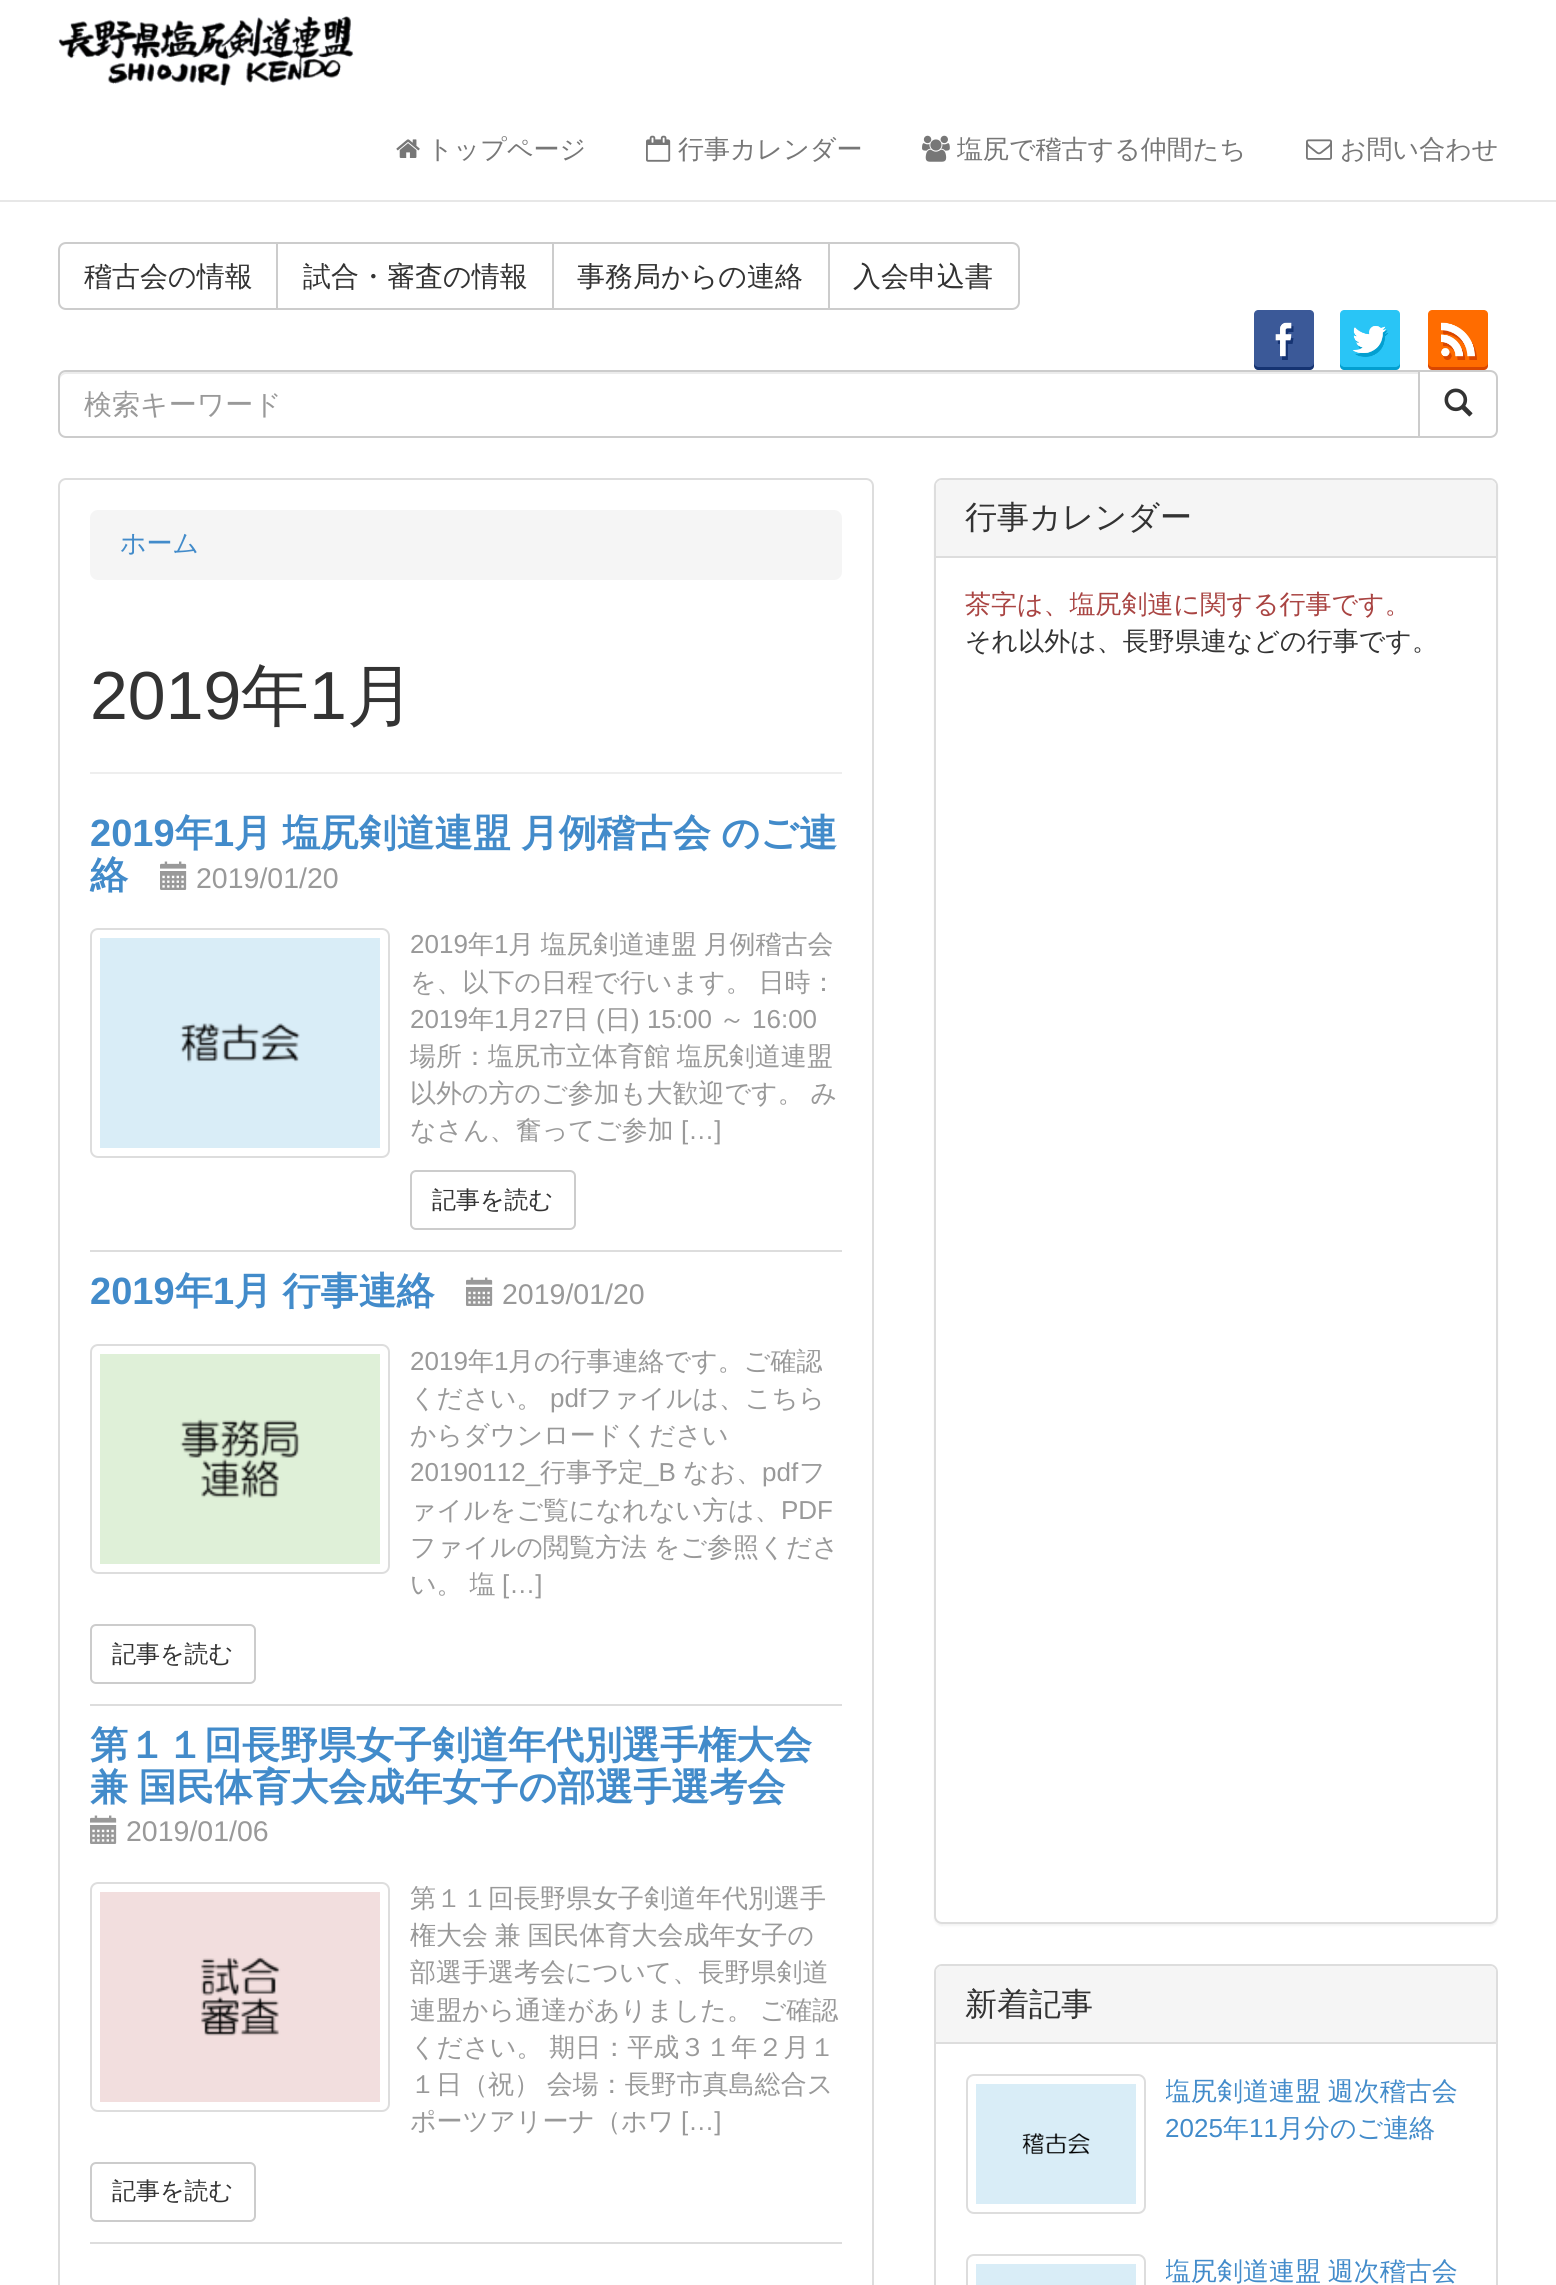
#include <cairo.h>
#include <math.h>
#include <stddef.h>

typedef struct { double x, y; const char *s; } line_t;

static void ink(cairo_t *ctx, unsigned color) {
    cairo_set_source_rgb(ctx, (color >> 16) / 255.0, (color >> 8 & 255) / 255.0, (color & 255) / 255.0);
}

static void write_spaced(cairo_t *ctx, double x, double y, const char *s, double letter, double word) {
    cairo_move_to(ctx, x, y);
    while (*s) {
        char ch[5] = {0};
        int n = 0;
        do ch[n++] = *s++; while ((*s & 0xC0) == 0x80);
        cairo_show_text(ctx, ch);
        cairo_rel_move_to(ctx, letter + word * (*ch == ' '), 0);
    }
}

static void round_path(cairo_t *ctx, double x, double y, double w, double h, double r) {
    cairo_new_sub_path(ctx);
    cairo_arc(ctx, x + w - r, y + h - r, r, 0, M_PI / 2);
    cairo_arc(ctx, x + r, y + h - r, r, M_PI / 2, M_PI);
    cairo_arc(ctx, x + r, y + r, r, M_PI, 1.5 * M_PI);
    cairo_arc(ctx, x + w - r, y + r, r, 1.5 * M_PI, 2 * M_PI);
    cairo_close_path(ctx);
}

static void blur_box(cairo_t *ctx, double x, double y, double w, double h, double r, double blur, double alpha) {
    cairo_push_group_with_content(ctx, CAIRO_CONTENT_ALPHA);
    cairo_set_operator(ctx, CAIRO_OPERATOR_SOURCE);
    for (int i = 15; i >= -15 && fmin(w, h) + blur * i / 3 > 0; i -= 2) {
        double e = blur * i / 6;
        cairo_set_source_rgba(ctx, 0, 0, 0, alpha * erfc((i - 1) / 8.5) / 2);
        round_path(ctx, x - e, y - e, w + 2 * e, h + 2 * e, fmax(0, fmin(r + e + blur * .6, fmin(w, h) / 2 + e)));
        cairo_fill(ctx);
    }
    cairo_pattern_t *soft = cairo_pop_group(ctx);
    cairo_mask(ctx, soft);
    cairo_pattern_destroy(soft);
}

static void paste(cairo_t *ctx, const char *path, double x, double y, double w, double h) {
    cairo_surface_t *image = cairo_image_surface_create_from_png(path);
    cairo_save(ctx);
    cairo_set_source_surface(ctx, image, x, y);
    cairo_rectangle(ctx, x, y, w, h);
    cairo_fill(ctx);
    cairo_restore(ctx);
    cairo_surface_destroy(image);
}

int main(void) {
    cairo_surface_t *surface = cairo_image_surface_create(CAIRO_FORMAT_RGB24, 1556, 2285);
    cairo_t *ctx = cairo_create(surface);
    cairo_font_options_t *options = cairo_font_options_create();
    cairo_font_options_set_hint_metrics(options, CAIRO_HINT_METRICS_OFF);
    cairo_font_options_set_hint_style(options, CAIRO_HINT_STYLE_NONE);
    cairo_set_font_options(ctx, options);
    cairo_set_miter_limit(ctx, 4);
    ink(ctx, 0xFFFFFF);
    cairo_paint(ctx);
    ink(ctx, 0xE7E7E7);
    cairo_rectangle(ctx, 0, 200, 1556, 2);
    cairo_fill(ctx);
    paste(ctx, "media/1.png", 58, 16, 296, 70);
    paste(ctx, "media/2.png", 396, 139, 24, 19);
    cairo_select_font_face(ctx, "WenQuanYi Zen Hei Medium", CAIRO_FONT_SLANT_NORMAL, CAIRO_FONT_WEIGHT_NORMAL);
    cairo_set_font_size(ctx, 26);
    ink(ctx, 0x777777);
    cairo_move_to(ctx, 427, 158);
    cairo_show_text(ctx, "トップページ");
    paste(ctx, "media/3.png", 646, 135, 25, 27);
    cairo_move_to(ctx, 678, 158);
    cairo_show_text(ctx, "行事カレンダー");
    paste(ctx, "media/4.png", 922, 135, 28, 27);
    cairo_move_to(ctx, 957, 158);
    cairo_show_text(ctx, "塩尻で稽古する仲間たち");
    paste(ctx, "media/5.png", 1306, 139, 26, 21);
    cairo_move_to(ctx, 1340, 158);
    cairo_show_text(ctx, "お問い合わせ");
    cairo_new_path(ctx);
    cairo_move_to(ctx, 66, 243);
    cairo_line_to(ctx, 277, 243);
    cairo_line_to(ctx, 277, 309);
    cairo_line_to(ctx, 66, 309);
    cairo_curve_to(ctx, 62, 309, 59, 306, 59, 302);
    cairo_line_to(ctx, 59, 250);
    cairo_curve_to(ctx, 59, 246, 62, 243, 66, 243);
    cairo_close_path(ctx);
    ink(ctx, 0xCCCCCC);
    cairo_stroke(ctx);
    cairo_set_font_size(ctx, 28);
    ink(ctx, 0x333333);
    cairo_move_to(ctx, 84, 286);
    cairo_show_text(ctx, "稽古会の情報");
    cairo_rectangle(ctx, 277, 243, 276, 66);
    ink(ctx, 0xCCCCCC);
    cairo_stroke(ctx);
    ink(ctx, 0x333333);
    cairo_move_to(ctx, 303, 286);
    cairo_show_text(ctx, "試合・審査の情報");
    cairo_rectangle(ctx, 553, 243, 276, 66);
    ink(ctx, 0xCCCCCC);
    cairo_stroke(ctx);
    ink(ctx, 0x333333);
    cairo_move_to(ctx, 577, 286);
    cairo_show_text(ctx, "事務局からの連絡");
    ink(ctx, 0xFFFFFF);
    cairo_new_path(ctx);
    cairo_move_to(ctx, 829, 243);
    cairo_line_to(ctx, 1012, 243);
    cairo_curve_to(ctx, 1016, 243, 1019, 246, 1019, 250);
    cairo_line_to(ctx, 1019, 302);
    cairo_curve_to(ctx, 1019, 306, 1016, 309, 1012, 309);
    cairo_line_to(ctx, 829, 309);
    cairo_close_path(ctx);
    cairo_fill_preserve(ctx);
    ink(ctx, 0xCCCCCC);
    cairo_stroke(ctx);
    ink(ctx, 0x333333);
    cairo_move_to(ctx, 853, 286);
    cairo_show_text(ctx, "入会申込書");
    paste(ctx, "media/6.png", 1254, 310, 60, 60);
    paste(ctx, "media/7.png", 1340, 310, 60, 60);
    paste(ctx, "media/8.png", 1428, 310, 60, 60);
    cairo_new_path(ctx);
    cairo_move_to(ctx, 1419, 371);
    cairo_line_to(ctx, 1490, 371);
    cairo_curve_to(ctx, 1494, 371, 1497, 374, 1497, 378);
    cairo_line_to(ctx, 1497, 430);
    cairo_curve_to(ctx, 1497, 434, 1494, 437, 1490, 437);
    cairo_line_to(ctx, 1419, 437);
    cairo_close_path(ctx);
    ink(ctx, 0xCCCCCC);
    cairo_stroke(ctx);
    ink(ctx, 0xFFFFFF);
    cairo_new_path(ctx);
    cairo_move_to(ctx, 66, 370);
    cairo_line_to(ctx, 1420, 370);
    cairo_line_to(ctx, 1420, 438);
    cairo_line_to(ctx, 66, 438);
    cairo_curve_to(ctx, 61.5, 438, 58, 434.5, 58, 430);
    cairo_line_to(ctx, 58, 378);
    cairo_curve_to(ctx, 58, 373.5, 61.5, 370, 66, 370);
    cairo_close_path(ctx);
    cairo_fill(ctx);
    ink(ctx, 0xECECEC);
    cairo_new_path(ctx);
    cairo_move_to(ctx, 66, 374);
    cairo_line_to(ctx, 1418, 374);
    cairo_line_to(ctx, 1418, 372);
    cairo_line_to(ctx, 66, 372);
    cairo_curve_to(ctx, 63, 372, 60, 375, 60, 378);
    cairo_line_to(ctx, 60, 380);
    cairo_curve_to(ctx, 60, 377, 63, 374, 66, 374);
    cairo_close_path(ctx);
    cairo_fill(ctx);
    cairo_new_path(ctx);
    cairo_move_to(ctx, 66, 371);
    cairo_line_to(ctx, 1419, 371);
    cairo_line_to(ctx, 1419, 437);
    cairo_line_to(ctx, 66, 437);
    cairo_curve_to(ctx, 62, 437, 59, 434, 59, 430);
    cairo_line_to(ctx, 59, 378);
    cairo_curve_to(ctx, 59, 374, 62, 371, 66, 371);
    cairo_close_path(ctx);
    ink(ctx, 0xCCCCCC);
    cairo_stroke(ctx);
    ink(ctx, 0x999999);
    cairo_move_to(ctx, 84, 414);
    cairo_show_text(ctx, "検索キーワード");
    paste(ctx, "media/9.png", 1444, 388, 29, 29);
    round_path(ctx, 59, 479, 814, 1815, 7);
    ink(ctx, 0xDDDDDD);
    cairo_stroke(ctx);
    ink(ctx, 0xF5F5F5);
    round_path(ctx, 90, 510, 752, 70, 8);
    cairo_fill(ctx);
    cairo_set_font_size(ctx, 26);
    ink(ctx, 0x428BCA);
    cairo_move_to(ctx, 120, 552);
    cairo_show_text(ctx, "ホーム");
    ink(ctx, 0xEEEEEE);
    cairo_rectangle(ctx, 90, 772, 752, 2);
    cairo_fill(ctx);
    cairo_select_font_face(ctx, "Liberation Sans", CAIRO_FONT_SLANT_NORMAL, CAIRO_FONT_WEIGHT_NORMAL);
    cairo_set_font_size(ctx, 68);
    ink(ctx, 0x333333);
    cairo_move_to(ctx, 90, 719);
    cairo_show_text(ctx, "2019");
    cairo_select_font_face(ctx, "WenQuanYi Zen Hei Medium", CAIRO_FONT_SLANT_NORMAL, CAIRO_FONT_WEIGHT_NORMAL);
    cairo_move_to(ctx, 241, 719);
    cairo_show_text(ctx, "年");
    cairo_select_font_face(ctx, "Liberation Sans", CAIRO_FONT_SLANT_NORMAL, CAIRO_FONT_WEIGHT_NORMAL);
    cairo_move_to(ctx, 309, 719);
    cairo_show_text(ctx, "1");
    cairo_select_font_face(ctx, "WenQuanYi Zen Hei Medium", CAIRO_FONT_SLANT_NORMAL, CAIRO_FONT_WEIGHT_NORMAL);
    cairo_move_to(ctx, 347, 719);
    cairo_show_text(ctx, "月");
    ink(ctx, 0xDDDDDD);
    cairo_rectangle(ctx, 90, 1250, 752, 2);
    cairo_fill(ctx);
    cairo_select_font_face(ctx, "Liberation Sans", CAIRO_FONT_SLANT_NORMAL, CAIRO_FONT_WEIGHT_BOLD);
    cairo_set_font_size(ctx, 38);
    ink(ctx, 0x428BCA);
    cairo_move_to(ctx, 90, 846);
    cairo_show_text(ctx, "2019");
    cairo_select_font_face(ctx, "WenQuanYi Zen Hei", CAIRO_FONT_SLANT_NORMAL, CAIRO_FONT_WEIGHT_BOLD);
    cairo_move_to(ctx, 175, 846);
    cairo_show_text(ctx, "年");
    cairo_select_font_face(ctx, "Liberation Sans", CAIRO_FONT_SLANT_NORMAL, CAIRO_FONT_WEIGHT_BOLD);
    cairo_move_to(ctx, 213, 846);
    cairo_show_text(ctx, "1");
    cairo_select_font_face(ctx, "WenQuanYi Zen Hei", CAIRO_FONT_SLANT_NORMAL, CAIRO_FONT_WEIGHT_BOLD);
    write_spaced(ctx, 234, 846, "月 塩尻剣道連盟 月例稽古会 のご連", 0, -1);
    cairo_move_to(ctx, 90, 888);
    cairo_show_text(ctx, "絡");
    paste(ctx, "media/10.png", 160, 861, 27, 29);
    cairo_select_font_face(ctx, "Liberation Sans", CAIRO_FONT_SLANT_NORMAL, CAIRO_FONT_WEIGHT_NORMAL);
    cairo_set_font_size(ctx, 28.5);
    ink(ctx, 0x999999);
    cairo_move_to(ctx, 196, 888);
    cairo_show_text(ctx, "2019/01/20");
    round_path(ctx, 91, 929, 298, 228, 7);
    ink(ctx, 0xDDDDDD);
    cairo_stroke(ctx);
    paste(ctx, "media/11.png", 100, 938, 280, 210);
    cairo_set_font_size(ctx, 26);
    ink(ctx, 0x999999);
    cairo_move_to(ctx, 410, 953);
    cairo_show_text(ctx, "2019");
    cairo_select_font_face(ctx, "WenQuanYi Zen Hei Medium", CAIRO_FONT_SLANT_NORMAL, CAIRO_FONT_WEIGHT_NORMAL);
    cairo_move_to(ctx, 468, 953);
    cairo_show_text(ctx, "年");
    cairo_select_font_face(ctx, "Liberation Sans", CAIRO_FONT_SLANT_NORMAL, CAIRO_FONT_WEIGHT_NORMAL);
    cairo_move_to(ctx, 494, 953);
    cairo_show_text(ctx, "1");
    cairo_select_font_face(ctx, "WenQuanYi Zen Hei Medium", CAIRO_FONT_SLANT_NORMAL, CAIRO_FONT_WEIGHT_NORMAL);
    write_spaced(ctx, 508, 953, "月 塩尻剣道連盟 月例稽古会", 0, -1);
    write_spaced(ctx, 410, 991, "を、以下の日程で行います。 日時：", 0, -1);
    cairo_select_font_face(ctx, "Liberation Sans", CAIRO_FONT_SLANT_NORMAL, CAIRO_FONT_WEIGHT_NORMAL);
    cairo_move_to(ctx, 410, 1028);
    cairo_show_text(ctx, "2019");
    cairo_select_font_face(ctx, "WenQuanYi Zen Hei Medium", CAIRO_FONT_SLANT_NORMAL, CAIRO_FONT_WEIGHT_NORMAL);
    cairo_move_to(ctx, 468, 1028);
    cairo_show_text(ctx, "年");
    cairo_select_font_face(ctx, "Liberation Sans", CAIRO_FONT_SLANT_NORMAL, CAIRO_FONT_WEIGHT_NORMAL);
    cairo_move_to(ctx, 494, 1028);
    cairo_show_text(ctx, "1");
    cairo_select_font_face(ctx, "WenQuanYi Zen Hei Medium", CAIRO_FONT_SLANT_NORMAL, CAIRO_FONT_WEIGHT_NORMAL);
    cairo_move_to(ctx, 508, 1028);
    cairo_show_text(ctx, "月");
    cairo_select_font_face(ctx, "Liberation Sans", CAIRO_FONT_SLANT_NORMAL, CAIRO_FONT_WEIGHT_NORMAL);
    cairo_move_to(ctx, 534, 1028);
    cairo_show_text(ctx, "27");
    cairo_select_font_face(ctx, "WenQuanYi Zen Hei Medium", CAIRO_FONT_SLANT_NORMAL, CAIRO_FONT_WEIGHT_NORMAL);
    cairo_move_to(ctx, 563, 1028);
    cairo_show_text(ctx, "日");
    cairo_select_font_face(ctx, "Liberation Sans", CAIRO_FONT_SLANT_NORMAL, CAIRO_FONT_WEIGHT_NORMAL);
    cairo_move_to(ctx, 596, 1028);
    cairo_show_text(ctx, "(");
    cairo_select_font_face(ctx, "WenQuanYi Zen Hei Medium", CAIRO_FONT_SLANT_NORMAL, CAIRO_FONT_WEIGHT_NORMAL);
    cairo_move_to(ctx, 605, 1028);
    cairo_show_text(ctx, "日");
    cairo_select_font_face(ctx, "Liberation Sans", CAIRO_FONT_SLANT_NORMAL, CAIRO_FONT_WEIGHT_NORMAL);
    cairo_move_to(ctx, 631, 1028);
    cairo_show_text(ctx, ") 15:00");
    cairo_select_font_face(ctx, "WenQuanYi Zen Hei Medium", CAIRO_FONT_SLANT_NORMAL, CAIRO_FONT_WEIGHT_NORMAL);
    cairo_move_to(ctx, 719, 1028);
    cairo_show_text(ctx, "～");
    cairo_select_font_face(ctx, "Liberation Sans", CAIRO_FONT_SLANT_NORMAL, CAIRO_FONT_WEIGHT_NORMAL);
    cairo_move_to(ctx, 752, 1028);
    cairo_show_text(ctx, "16:00");
    cairo_select_font_face(ctx, "WenQuanYi Zen Hei Medium", CAIRO_FONT_SLANT_NORMAL, CAIRO_FONT_WEIGHT_NORMAL);
    write_spaced(ctx, 410, 1065, "場所：塩尻市立体育館 塩尻剣道連盟", 0, -1);
    write_spaced(ctx, 410, 1102, "以外の方のご参加も大歓迎です。 み", 0, -1);
    cairo_move_to(ctx, 410, 1139);
    cairo_show_text(ctx, "なさん、奮ってご参加");
    cairo_select_font_face(ctx, "Liberation Sans", CAIRO_FONT_SLANT_NORMAL, CAIRO_FONT_WEIGHT_NORMAL);
    cairo_move_to(ctx, 681, 1139);
    cairo_show_text(ctx, "[…]");
    round_path(ctx, 411, 1171, 164, 58, 5);
    ink(ctx, 0xCCCCCC);
    cairo_stroke(ctx);
    cairo_select_font_face(ctx, "WenQuanYi Zen Hei Medium", CAIRO_FONT_SLANT_NORMAL, CAIRO_FONT_WEIGHT_NORMAL);
    cairo_set_font_size(ctx, 24);
    ink(ctx, 0x333333);
    cairo_move_to(ctx, 432, 1208);
    cairo_show_text(ctx, "記事を読む");
    ink(ctx, 0xDDDDDD);
    cairo_rectangle(ctx, 90, 1704, 752, 2);
    cairo_fill(ctx);
    cairo_select_font_face(ctx, "Liberation Sans", CAIRO_FONT_SLANT_NORMAL, CAIRO_FONT_WEIGHT_BOLD);
    cairo_set_font_size(ctx, 38);
    ink(ctx, 0x428BCA);
    cairo_move_to(ctx, 90, 1304);
    cairo_show_text(ctx, "2019");
    cairo_select_font_face(ctx, "WenQuanYi Zen Hei", CAIRO_FONT_SLANT_NORMAL, CAIRO_FONT_WEIGHT_BOLD);
    cairo_move_to(ctx, 175, 1304);
    cairo_show_text(ctx, "年");
    cairo_select_font_face(ctx, "Liberation Sans", CAIRO_FONT_SLANT_NORMAL, CAIRO_FONT_WEIGHT_BOLD);
    cairo_move_to(ctx, 213, 1304);
    cairo_show_text(ctx, "1");
    cairo_select_font_face(ctx, "WenQuanYi Zen Hei", CAIRO_FONT_SLANT_NORMAL, CAIRO_FONT_WEIGHT_BOLD);
    write_spaced(ctx, 234, 1304, "月 行事連絡", 0, -1);
    paste(ctx, "media/10.png", 466, 1277, 27, 29);
    cairo_select_font_face(ctx, "Liberation Sans", CAIRO_FONT_SLANT_NORMAL, CAIRO_FONT_WEIGHT_NORMAL);
    cairo_set_font_size(ctx, 28.5);
    ink(ctx, 0x999999);
    cairo_move_to(ctx, 502, 1304);
    cairo_show_text(ctx, "2019/01/20");
    round_path(ctx, 91, 1345, 298, 228, 7);
    ink(ctx, 0xDDDDDD);
    cairo_stroke(ctx);
    paste(ctx, "media/12.png", 100, 1354, 280, 210);
    cairo_set_font_size(ctx, 26);
    ink(ctx, 0x999999);
    cairo_move_to(ctx, 410, 1370);
    cairo_show_text(ctx, "2019");
    cairo_select_font_face(ctx, "WenQuanYi Zen Hei Medium", CAIRO_FONT_SLANT_NORMAL, CAIRO_FONT_WEIGHT_NORMAL);
    cairo_move_to(ctx, 468, 1370);
    cairo_show_text(ctx, "年");
    cairo_select_font_face(ctx, "Liberation Sans", CAIRO_FONT_SLANT_NORMAL, CAIRO_FONT_WEIGHT_NORMAL);
    cairo_move_to(ctx, 494, 1370);
    cairo_show_text(ctx, "1");
    cairo_select_font_face(ctx, "WenQuanYi Zen Hei Medium", CAIRO_FONT_SLANT_NORMAL, CAIRO_FONT_WEIGHT_NORMAL);
    cairo_move_to(ctx, 508, 1370);
    cairo_show_text(ctx, "月の行事連絡です。ご確認");
    cairo_move_to(ctx, 410, 1407);
    cairo_show_text(ctx, "ください。");
    cairo_select_font_face(ctx, "Liberation Sans", CAIRO_FONT_SLANT_NORMAL, CAIRO_FONT_WEIGHT_NORMAL);
    cairo_move_to(ctx, 550, 1407);
    cairo_show_text(ctx, "pdf");
    cairo_select_font_face(ctx, "WenQuanYi Zen Hei Medium", CAIRO_FONT_SLANT_NORMAL, CAIRO_FONT_WEIGHT_NORMAL);
    cairo_move_to(ctx, 586, 1407);
    cairo_show_text(ctx, "ファイルは、こちら");
    cairo_move_to(ctx, 410, 1444);
    cairo_show_text(ctx, "からダウンロードください");
    cairo_select_font_face(ctx, "Liberation Sans", CAIRO_FONT_SLANT_NORMAL, CAIRO_FONT_WEIGHT_NORMAL);
    cairo_move_to(ctx, 410, 1481);
    cairo_show_text(ctx, "20190112_");
    cairo_select_font_face(ctx, "WenQuanYi Zen Hei Medium", CAIRO_FONT_SLANT_NORMAL, CAIRO_FONT_WEIGHT_NORMAL);
    cairo_move_to(ctx, 540, 1481);
    cairo_show_text(ctx, "行事予定");
    cairo_select_font_face(ctx, "Liberation Sans", CAIRO_FONT_SLANT_NORMAL, CAIRO_FONT_WEIGHT_NORMAL);
    cairo_move_to(ctx, 644, 1481);
    cairo_show_text(ctx, "_B");
    cairo_select_font_face(ctx, "WenQuanYi Zen Hei Medium", CAIRO_FONT_SLANT_NORMAL, CAIRO_FONT_WEIGHT_NORMAL);
    cairo_move_to(ctx, 683, 1481);
    cairo_show_text(ctx, "なお、");
    cairo_select_font_face(ctx, "Liberation Sans", CAIRO_FONT_SLANT_NORMAL, CAIRO_FONT_WEIGHT_NORMAL);
    cairo_move_to(ctx, 762, 1481);
    cairo_show_text(ctx, "pdf");
    cairo_select_font_face(ctx, "WenQuanYi Zen Hei Medium", CAIRO_FONT_SLANT_NORMAL, CAIRO_FONT_WEIGHT_NORMAL);
    cairo_move_to(ctx, 799, 1481);
    cairo_show_text(ctx, "フ");
    cairo_move_to(ctx, 410, 1519);
    cairo_show_text(ctx, "ァイルをご覧になれない方は、");
    cairo_select_font_face(ctx, "Liberation Sans", CAIRO_FONT_SLANT_NORMAL, CAIRO_FONT_WEIGHT_NORMAL);
    cairo_move_to(ctx, 781, 1519);
    cairo_show_text(ctx, "PDF");
    cairo_select_font_face(ctx, "WenQuanYi Zen Hei Medium", CAIRO_FONT_SLANT_NORMAL, CAIRO_FONT_WEIGHT_NORMAL);
    write_spaced(ctx, 410, 1556, "ファイルの閲覧方法 をご参照くださ", 0, -1);
    write_spaced(ctx, 410, 1593, "い。 塩", 0, -1);
    cairo_select_font_face(ctx, "Liberation Sans", CAIRO_FONT_SLANT_NORMAL, CAIRO_FONT_WEIGHT_NORMAL);
    cairo_move_to(ctx, 502, 1593);
    cairo_show_text(ctx, "[…]");
    round_path(ctx, 91, 1625, 164, 58, 5);
    ink(ctx, 0xCCCCCC);
    cairo_stroke(ctx);
    cairo_select_font_face(ctx, "WenQuanYi Zen Hei Medium", CAIRO_FONT_SLANT_NORMAL, CAIRO_FONT_WEIGHT_NORMAL);
    cairo_set_font_size(ctx, 24);
    ink(ctx, 0x333333);
    cairo_move_to(ctx, 112, 1662);
    cairo_show_text(ctx, "記事を読む");
    ink(ctx, 0xDDDDDD);
    cairo_rectangle(ctx, 90, 2242, 752, 2);
    cairo_fill(ctx);
    cairo_select_font_face(ctx, "WenQuanYi Zen Hei", CAIRO_FONT_SLANT_NORMAL, CAIRO_FONT_WEIGHT_BOLD);
    cairo_set_font_size(ctx, 38);
    ink(ctx, 0x428BCA);
    cairo_move_to(ctx, 90, 1758);
    cairo_show_text(ctx, "第１１回長野県女子剣道年代別選手権大会");
    write_spaced(ctx, 90, 1800, "兼 国民体育大会成年女子の部選手選考会", 0, -1);
    paste(ctx, "media/10.png", 90, 1815, 27, 29);
    cairo_select_font_face(ctx, "Liberation Sans", CAIRO_FONT_SLANT_NORMAL, CAIRO_FONT_WEIGHT_NORMAL);
    cairo_set_font_size(ctx, 28.5);
    ink(ctx, 0x999999);
    cairo_move_to(ctx, 126, 1841);
    cairo_show_text(ctx, "2019/01/06");
    round_path(ctx, 91, 1883, 298, 228, 7);
    ink(ctx, 0xDDDDDD);
    cairo_stroke(ctx);
    paste(ctx, "media/13.png", 100, 1892, 280, 210);
    cairo_select_font_face(ctx, "WenQuanYi Zen Hei Medium", CAIRO_FONT_SLANT_NORMAL, CAIRO_FONT_WEIGHT_NORMAL);
    cairo_set_font_size(ctx, 26);
    ink(ctx, 0x999999);
    cairo_move_to(ctx, 410, 1907);
    cairo_show_text(ctx, "第１１回長野県女子剣道年代別選手");
    write_spaced(ctx, 410, 1944, "権大会 兼 国民体育大会成年女子の", 0, -1);
    cairo_move_to(ctx, 410, 1981);
    cairo_show_text(ctx, "部選手選考会について、長野県剣道");
    {
        static const line_t items[] = {
            {410, 2019, "連盟から通達がありました。 ご確認"},
            {410, 2056, "ください。 期日：平成３１年２月１"},
            {410, 2093, "１日（祝） 会場：長野市真島総合ス"},
        };
        for (size_t i = 0; i < sizeof items / sizeof *items; i++) {
            write_spaced(ctx, items[i].x, items[i].y, items[i].s, 0, -1);
        }
    }
    cairo_move_to(ctx, 410, 2130);
    cairo_show_text(ctx, "ポーツアリーナ（ホワ");
    cairo_select_font_face(ctx, "Liberation Sans", CAIRO_FONT_SLANT_NORMAL, CAIRO_FONT_WEIGHT_NORMAL);
    cairo_move_to(ctx, 681, 2130);
    cairo_show_text(ctx, "[…]");
    round_path(ctx, 91, 2163, 164, 58, 5);
    ink(ctx, 0xCCCCCC);
    cairo_stroke(ctx);
    cairo_select_font_face(ctx, "WenQuanYi Zen Hei Medium", CAIRO_FONT_SLANT_NORMAL, CAIRO_FONT_WEIGHT_NORMAL);
    cairo_set_font_size(ctx, 24);
    ink(ctx, 0x333333);
    cairo_move_to(ctx, 112, 2199);
    cairo_show_text(ctx, "記事を読む");
    ink(ctx, 0x000000);
    blur_box(ctx, 934, 480, 564, 1446, 8, 1, 0.05);
    ink(ctx, 0xFFFFFF);
    round_path(ctx, 935, 479, 562, 1444, 7);
    cairo_fill_preserve(ctx);
    ink(ctx, 0xDDDDDD);
    cairo_stroke(ctx);
    ink(ctx, 0xF5F5F5);
    cairo_new_path(ctx);
    cairo_move_to(ctx, 942, 480);
    cairo_line_to(ctx, 1490, 480);
    cairo_curve_to(ctx, 1493.5, 480, 1496, 482.5, 1496, 486);
    cairo_line_to(ctx, 1496, 558);
    cairo_line_to(ctx, 936, 558);
    cairo_line_to(ctx, 936, 486);
    cairo_curve_to(ctx, 936, 482.5, 938.5, 480, 942, 480);
    cairo_close_path(ctx);
    cairo_fill(ctx);
    ink(ctx, 0xDDDDDD);
    cairo_rectangle(ctx, 936, 556, 560, 2);
    cairo_fill(ctx);
    cairo_set_font_size(ctx, 32);
    ink(ctx, 0x333333);
    cairo_move_to(ctx, 965, 528);
    cairo_show_text(ctx, "行事カレンダー");
    cairo_set_font_size(ctx, 26);
    ink(ctx, 0xA94442);
    cairo_move_to(ctx, 965, 613);
    cairo_show_text(ctx, "茶字は、塩尻剣連に関する行事です。");
    ink(ctx, 0x333333);
    cairo_move_to(ctx, 965, 650);
    cairo_show_text(ctx, "それ以外は、長野県連などの行事です。");
    round_path(ctx, 935, 1965, 562, 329, 7);
    ink(ctx, 0xDDDDDD);
    cairo_stroke(ctx);
    ink(ctx, 0xF5F5F5);
    cairo_new_path(ctx);
    cairo_move_to(ctx, 942, 1966);
    cairo_line_to(ctx, 1490, 1966);
    cairo_curve_to(ctx, 1493.5, 1966, 1496, 1968.5, 1496, 1972);
    cairo_line_to(ctx, 1496, 2044);
    cairo_line_to(ctx, 936, 2044);
    cairo_line_to(ctx, 936, 1972);
    cairo_curve_to(ctx, 936, 1968.5, 938.5, 1966, 942, 1966);
    cairo_close_path(ctx);
    cairo_fill(ctx);
    ink(ctx, 0xDDDDDD);
    cairo_rectangle(ctx, 936, 2042, 560, 2);
    cairo_fill(ctx);
    cairo_set_font_size(ctx, 32);
    ink(ctx, 0x333333);
    cairo_move_to(ctx, 965, 2015);
    cairo_show_text(ctx, "新着記事");
    round_path(ctx, 967, 2075, 178, 138, 7);
    ink(ctx, 0xDDDDDD);
    cairo_stroke(ctx);
    paste(ctx, "media/14.png", 976, 2084, 160, 120);
    cairo_save(ctx);
    cairo_rectangle(ctx, 1166, 2074, 300, 74);
    cairo_clip(ctx);
    cairo_set_font_size(ctx, 26);
    ink(ctx, 0x428BCA);
    write_spaced(ctx, 1165, 2100, "塩尻剣道連盟 週次稽古会", 0, -1);
    cairo_restore(ctx);
    cairo_select_font_face(ctx, "Liberation Sans", CAIRO_FONT_SLANT_NORMAL, CAIRO_FONT_WEIGHT_NORMAL);
    cairo_set_font_size(ctx, 26);
    ink(ctx, 0x428BCA);
    cairo_move_to(ctx, 1165, 2137);
    cairo_show_text(ctx, "2025");
    cairo_select_font_face(ctx, "WenQuanYi Zen Hei Medium", CAIRO_FONT_SLANT_NORMAL, CAIRO_FONT_WEIGHT_NORMAL);
    cairo_move_to(ctx, 1223, 2137);
    cairo_show_text(ctx, "年");
    cairo_select_font_face(ctx, "Liberation Sans", CAIRO_FONT_SLANT_NORMAL, CAIRO_FONT_WEIGHT_NORMAL);
    cairo_move_to(ctx, 1249, 2137);
    cairo_show_text(ctx, "11");
    cairo_select_font_face(ctx, "WenQuanYi Zen Hei Medium", CAIRO_FONT_SLANT_NORMAL, CAIRO_FONT_WEIGHT_NORMAL);
    cairo_move_to(ctx, 1278, 2137);
    cairo_show_text(ctx, "月分のご連絡");
    round_path(ctx, 967, 2255, 178, 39, 7);
    ink(ctx, 0xDDDDDD);
    cairo_stroke(ctx);
    ink(ctx, 0xD9EDF7);
    cairo_rectangle(ctx, 976, 2264, 160, 21);
    cairo_fill(ctx);
    cairo_save(ctx);
    cairo_rectangle(ctx, 1166, 2254, 300, 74);
    cairo_clip(ctx);
    ink(ctx, 0x428BCA);
    write_spaced(ctx, 1165, 2280, "塩尻剣道連盟 週次稽古会", 0, -1);
    cairo_restore(ctx);
    cairo_surface_write_to_png(surface, "image.png");
    cairo_font_options_destroy(options);
    cairo_destroy(ctx);
    cairo_surface_destroy(surface);
    return 0;
}
